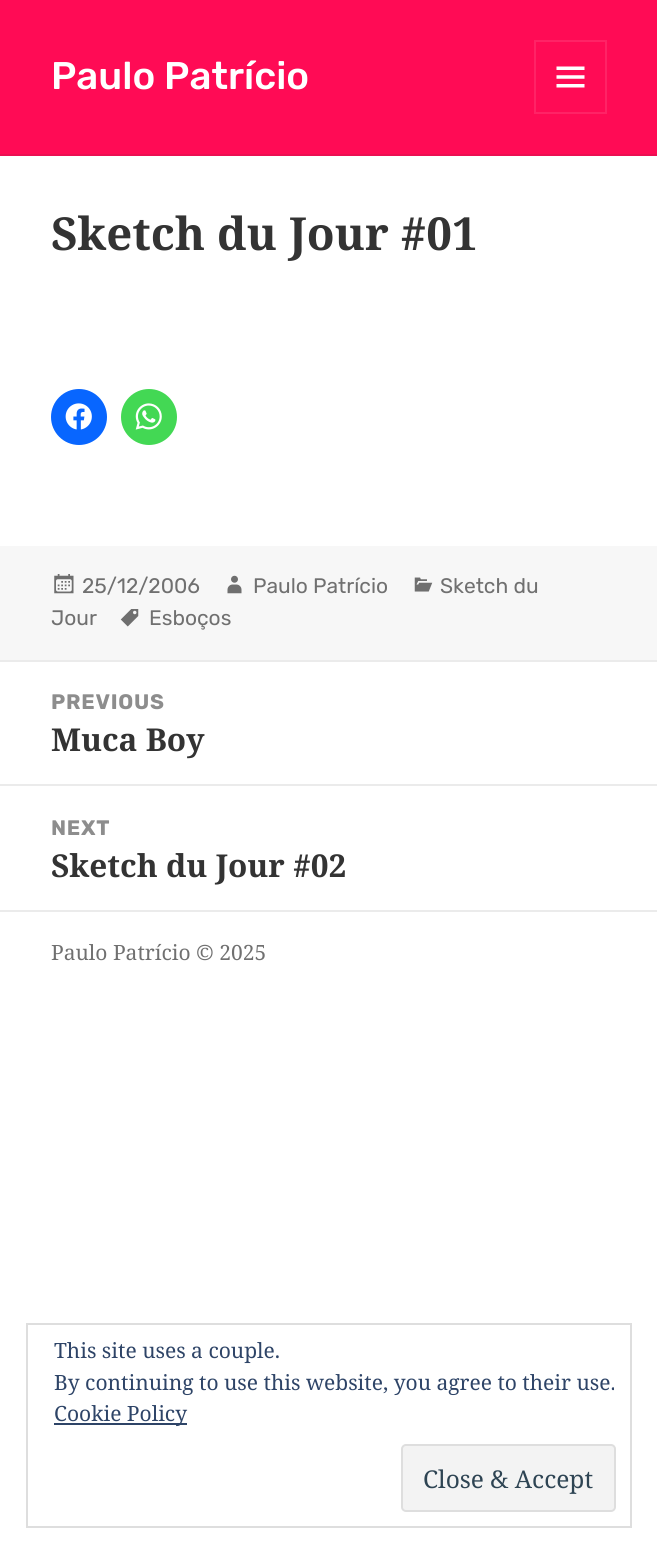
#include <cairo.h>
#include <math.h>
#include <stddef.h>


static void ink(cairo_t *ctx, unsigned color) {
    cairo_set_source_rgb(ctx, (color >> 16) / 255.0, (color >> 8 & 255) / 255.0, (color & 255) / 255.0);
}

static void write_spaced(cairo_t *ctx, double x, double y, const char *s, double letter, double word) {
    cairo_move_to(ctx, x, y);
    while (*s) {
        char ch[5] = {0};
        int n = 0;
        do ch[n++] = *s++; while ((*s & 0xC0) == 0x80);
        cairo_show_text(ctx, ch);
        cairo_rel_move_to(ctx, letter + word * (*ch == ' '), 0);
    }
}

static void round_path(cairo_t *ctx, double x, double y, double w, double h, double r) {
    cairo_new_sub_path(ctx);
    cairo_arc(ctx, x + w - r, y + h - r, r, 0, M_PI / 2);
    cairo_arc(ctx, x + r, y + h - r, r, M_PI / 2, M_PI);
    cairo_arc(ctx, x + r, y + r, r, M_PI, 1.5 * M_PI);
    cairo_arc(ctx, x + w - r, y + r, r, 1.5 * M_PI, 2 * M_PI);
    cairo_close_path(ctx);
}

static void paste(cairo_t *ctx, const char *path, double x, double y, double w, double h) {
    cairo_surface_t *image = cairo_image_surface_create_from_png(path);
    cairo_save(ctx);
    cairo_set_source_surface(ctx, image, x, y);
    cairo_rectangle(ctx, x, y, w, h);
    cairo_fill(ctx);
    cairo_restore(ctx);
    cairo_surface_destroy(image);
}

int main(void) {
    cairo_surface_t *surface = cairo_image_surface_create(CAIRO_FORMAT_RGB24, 657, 1554);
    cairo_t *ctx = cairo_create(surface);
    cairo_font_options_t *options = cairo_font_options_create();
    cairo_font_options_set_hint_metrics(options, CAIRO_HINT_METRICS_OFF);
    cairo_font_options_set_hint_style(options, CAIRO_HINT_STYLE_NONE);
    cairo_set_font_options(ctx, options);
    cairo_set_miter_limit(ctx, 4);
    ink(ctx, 0xFFFFFF);
    cairo_paint(ctx);
    ink(ctx, 0xFF0B55);
    cairo_rectangle(ctx, 0, 0, 657, 154);
    cairo_fill(ctx);
    ink(ctx, 0xEB0F52);
    cairo_rectangle(ctx, 0, 154, 657, 2);
    cairo_fill(ctx);
    cairo_select_font_face(ctx, "Rubik Medium", CAIRO_FONT_SLANT_NORMAL, CAIRO_FONT_WEIGHT_NORMAL);
    cairo_set_font_size(ctx, 38.5);
    ink(ctx, 0xFFFFFF);
    cairo_move_to(ctx, 51, 89);
    cairo_show_text(ctx, "Paulo Patrício");
    cairo_rectangle(ctx, 535, 41, 71, 72);
    ink(ctx, 0xFF2366);
    cairo_stroke(ctx);
    paste(ctx, "media/1.png", 556, 66, 29, 22);
    cairo_select_font_face(ctx, "Noto Serif", CAIRO_FONT_SLANT_NORMAL, CAIRO_FONT_WEIGHT_BOLD);
    cairo_set_font_size(ctx, 45.5);
    ink(ctx, 0x333333);
    cairo_move_to(ctx, 51, 250);
    cairo_show_text(ctx, "Sketch du Jour #01");
    ink(ctx, 0x0866FF);
    cairo_new_path(ctx);
    cairo_arc(ctx, 79, 417, 28, 0, 2 * M_PI);
    cairo_fill(ctx);
    paste(ctx, "media/2.png", 65, 403, 27, 27);
    ink(ctx, 0x43D854);
    cairo_arc(ctx, 149, 417, 28, 0, 2 * M_PI);
    cairo_fill(ctx);
    paste(ctx, "media/3.png", 135, 403, 27, 27);
    ink(ctx, 0xF7F7F7);
    cairo_rectangle(ctx, 0, 546, 657, 114);
    cairo_fill(ctx);
    paste(ctx, "media/4.png", 54, 574, 20, 20);
    cairo_select_font_face(ctx, "Rubik", CAIRO_FONT_SLANT_NORMAL, CAIRO_FONT_WEIGHT_NORMAL);
    cairo_set_font_size(ctx, 21);
    ink(ctx, 0x707070);
    cairo_move_to(ctx, 82, 593);
    cairo_show_text(ctx, "25/12/2006");
    paste(ctx, "media/5.png", 227, 575, 15, 19);
    cairo_move_to(ctx, 253, 593);
    cairo_show_text(ctx, "Paulo Patrício");
    paste(ctx, "media/6.png", 414, 577, 19, 15);
    cairo_move_to(ctx, 440, 593);
    cairo_show_text(ctx, "Sketch du");
    cairo_move_to(ctx, 51, 625);
    cairo_show_text(ctx, "Jour");
    paste(ctx, "media/7.png", 120, 609, 19, 18);
    cairo_move_to(ctx, 149, 625);
    cairo_show_text(ctx, "Esboços");
    ink(ctx, 0xEBEBEB);
    cairo_rectangle(ctx, 0, 660, 657, 2);
    cairo_fill(ctx);
    cairo_select_font_face(ctx, "Rubik", CAIRO_FONT_SLANT_NORMAL, CAIRO_FONT_WEIGHT_BOLD);
    ink(ctx, 0x8D8D8D);
    write_spaced(ctx, 51, 709, "PREVIOUS", 0.75, 0);
    cairo_select_font_face(ctx, "Noto Serif", CAIRO_FONT_SLANT_NORMAL, CAIRO_FONT_WEIGHT_BOLD);
    cairo_set_font_size(ctx, 31.5);
    ink(ctx, 0x333333);
    cairo_move_to(ctx, 51, 751);
    cairo_show_text(ctx, "Muca Boy");
    ink(ctx, 0xEBEBEB);
    cairo_rectangle(ctx, 0, 784, 657, 2);
    cairo_fill(ctx);
    cairo_select_font_face(ctx, "Rubik", CAIRO_FONT_SLANT_NORMAL, CAIRO_FONT_WEIGHT_BOLD);
    cairo_set_font_size(ctx, 21);
    ink(ctx, 0x8D8D8D);
    write_spaced(ctx, 51, 835, "NEXT", 0.75, 0);
    cairo_select_font_face(ctx, "Noto Serif", CAIRO_FONT_SLANT_NORMAL, CAIRO_FONT_WEIGHT_BOLD);
    cairo_set_font_size(ctx, 31.5);
    ink(ctx, 0x333333);
    cairo_move_to(ctx, 51, 877);
    cairo_show_text(ctx, "Sketch du Jour #02");
    ink(ctx, 0xEBEBEB);
    cairo_rectangle(ctx, 0, 910, 657, 2);
    cairo_fill(ctx);
    cairo_select_font_face(ctx, "Noto Serif", CAIRO_FONT_SLANT_NORMAL, CAIRO_FONT_WEIGHT_NORMAL);
    cairo_set_font_size(ctx, 21);
    ink(ctx, 0x707070);
    cairo_move_to(ctx, 51, 960);
    cairo_show_text(ctx, "Paulo Patrício © 2025");
    cairo_rectangle(ctx, 27, 1324, 604, 203);
    ink(ctx, 0xDEDEDE);
    cairo_stroke(ctx);
    ink(ctx, 0x2E4467);
    cairo_move_to(ctx, 54, 1358);
    cairo_show_text(ctx, "This site uses a couple.");
    cairo_move_to(ctx, 54, 1390);
    cairo_show_text(ctx, "By continuing to use this website, you agree to their use.");
    cairo_rectangle(ctx, 54, 1423, 133, 2);
    cairo_fill(ctx);
    cairo_move_to(ctx, 54, 1421);
    cairo_show_text(ctx, "Cookie Policy");
    ink(ctx, 0xF3F3F3);
    round_path(ctx, 402, 1445, 213, 66, 4);
    cairo_fill_preserve(ctx);
    ink(ctx, 0xDEDEDE);
    cairo_stroke(ctx);
    cairo_set_font_size(ctx, 24.5);
    ink(ctx, 0x2E4453);
    cairo_move_to(ctx, 423, 1488);
    cairo_show_text(ctx, "Close & Accept");
    cairo_surface_write_to_png(surface, "image.png");
    cairo_font_options_destroy(options);
    cairo_destroy(ctx);
    cairo_surface_destroy(surface);
    return 0;
}
